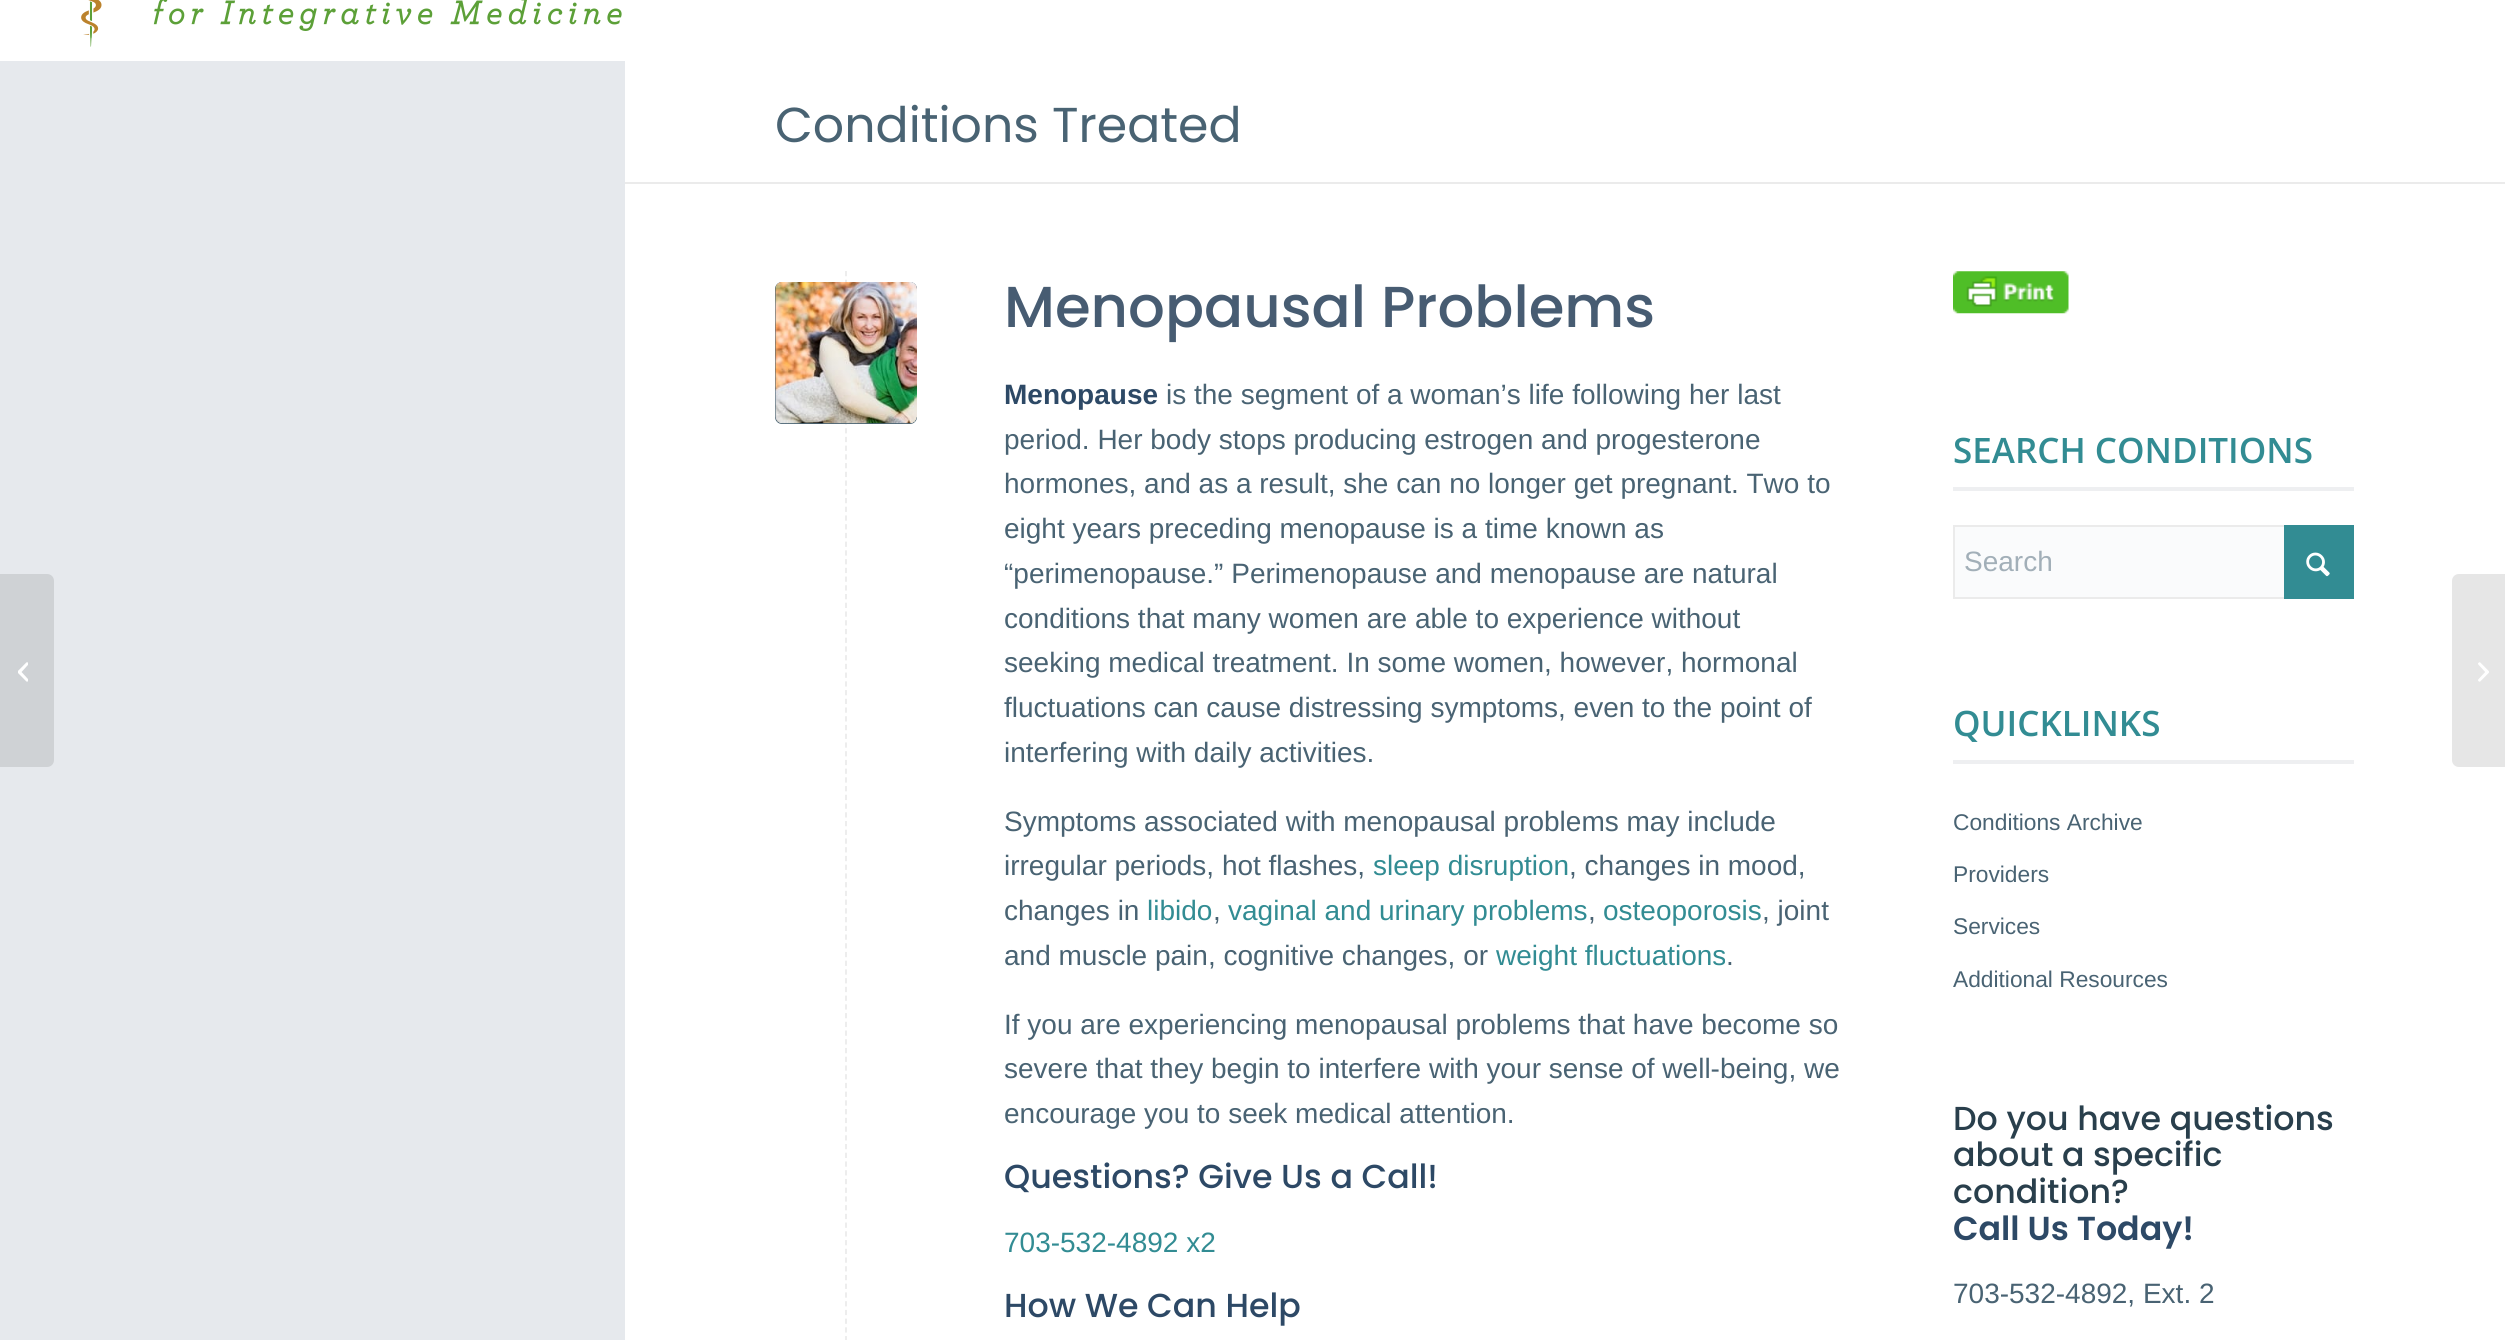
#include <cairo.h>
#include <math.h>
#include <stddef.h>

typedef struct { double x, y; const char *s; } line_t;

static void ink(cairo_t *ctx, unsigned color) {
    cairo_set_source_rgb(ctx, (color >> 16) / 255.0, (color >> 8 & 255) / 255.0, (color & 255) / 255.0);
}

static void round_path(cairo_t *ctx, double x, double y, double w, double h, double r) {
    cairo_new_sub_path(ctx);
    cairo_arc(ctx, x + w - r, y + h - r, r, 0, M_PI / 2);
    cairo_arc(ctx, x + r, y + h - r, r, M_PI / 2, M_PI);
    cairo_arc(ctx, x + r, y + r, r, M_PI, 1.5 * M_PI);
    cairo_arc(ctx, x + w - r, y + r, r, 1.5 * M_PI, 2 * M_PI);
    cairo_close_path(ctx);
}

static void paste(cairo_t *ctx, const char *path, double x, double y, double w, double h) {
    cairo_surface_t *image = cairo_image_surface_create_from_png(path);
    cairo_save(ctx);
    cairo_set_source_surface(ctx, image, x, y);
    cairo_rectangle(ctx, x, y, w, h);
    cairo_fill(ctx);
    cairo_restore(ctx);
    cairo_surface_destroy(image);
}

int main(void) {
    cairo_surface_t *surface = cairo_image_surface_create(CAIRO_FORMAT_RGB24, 2505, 1340);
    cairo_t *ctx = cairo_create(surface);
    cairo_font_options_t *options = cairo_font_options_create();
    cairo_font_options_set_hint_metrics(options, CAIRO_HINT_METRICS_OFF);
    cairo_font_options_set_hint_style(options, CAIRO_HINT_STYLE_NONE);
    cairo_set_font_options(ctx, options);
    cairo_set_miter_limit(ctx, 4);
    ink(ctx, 0xE6E9ED);
    cairo_paint(ctx);
    ink(ctx, 0xFFFFFF);
    cairo_rectangle(ctx, 0, 0, 2505, 61);
    cairo_fill(ctx);
    paste(ctx, "media/1.png", 81, 0, 541, 47);
    ink(ctx, 0xCFD2D5);
    cairo_new_path(ctx);
    cairo_move_to(ctx, 0, 574);
    cairo_line_to(ctx, 47, 574);
    cairo_curve_to(ctx, 51, 574, 54, 577, 54, 581);
    cairo_line_to(ctx, 54, 760);
    cairo_curve_to(ctx, 54, 764, 51, 767, 47, 767);
    cairo_line_to(ctx, 0, 767);
    cairo_close_path(ctx);
    cairo_fill(ctx);
    paste(ctx, "media/2.png", 18, 662, 10, 20);
    ink(ctx, 0xFFFFFF);
    cairo_rectangle(ctx, 625, 61, 1880, 1279);
    cairo_fill(ctx);
    cairo_select_font_face(ctx, "Poppins", CAIRO_FONT_SLANT_NORMAL, CAIRO_FONT_WEIGHT_NORMAL);
    cairo_set_font_size(ctx, 49);
    ink(ctx, 0x496373);
    cairo_move_to(ctx, 775, 142);
    cairo_show_text(ctx, "Conditions Treated");
    ink(ctx, 0xEBEBEB);
    cairo_rectangle(ctx, 625, 182, 1880, 2);
    cairo_fill(ctx);
    cairo_new_path(ctx);
    cairo_move_to(ctx, 846, 271);
    cairo_line_to(ctx, 846, 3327);
    cairo_set_line_width(ctx, 1.8);
    cairo_set_dash(ctx, (double[]){5.25, 3.48}, 2, 0);
    cairo_stroke(ctx);
    ink(ctx, 0x496373);
    round_path(ctx, 775, 282, 142, 142, 7);
    cairo_fill(ctx);
    paste(ctx, "media/3.png", 775, 282, 142, 142);
    cairo_select_font_face(ctx, "Poppins Medium", CAIRO_FONT_SLANT_NORMAL, CAIRO_FONT_WEIGHT_NORMAL);
    cairo_set_font_size(ctx, 57.75);
    ink(ctx, 0x475C72);
    cairo_move_to(ctx, 1004, 327);
    cairo_show_text(ctx, "Menopausal Problems");
    cairo_select_font_face(ctx, "Liberation Sans", CAIRO_FONT_SLANT_NORMAL, CAIRO_FONT_WEIGHT_BOLD);
    cairo_set_font_size(ctx, 28);
    ink(ctx, 0x2D4966);
    cairo_move_to(ctx, 1004, 404);
    cairo_show_text(ctx, "Menopause");
    cairo_select_font_face(ctx, "Liberation Sans", CAIRO_FONT_SLANT_NORMAL, CAIRO_FONT_WEIGHT_NORMAL);
    ink(ctx, 0x496373);
    {
        static const line_t items[] = {
            {1166, 404, "is the segment of a woman’s life following her last"},
            {1004, 449, "period. Her body stops producing estrogen and progesterone"},
            {1004, 493, "hormones, and as a result, she can no longer get pregnant. Two to"},
            {1004, 538, "eight years preceding menopause is a time known as"},
            {1004, 583, "“perimenopause.” Perimenopause and menopause are natural"},
            {1004, 628, "conditions that many women are able to experience without"},
            {1004, 672, "seeking medical treatment. In some women, however, hormonal"},
            {1004, 717, "fluctuations can cause distressing symptoms, even to the point of"},
            {1004, 762, "interfering with daily activities."},
            {1004, 831, "Symptoms associated with menopausal problems may include"},
            {1004, 875, "irregular periods, hot flashes,"},
        };
        for (size_t i = 0; i < sizeof items / sizeof *items; i++) {
            cairo_move_to(ctx, items[i].x, items[i].y);
            cairo_show_text(ctx, items[i].s);
        }
    }
    ink(ctx, 0x328C93);
    cairo_move_to(ctx, 1373, 875);
    cairo_show_text(ctx, "sleep disruption");
    ink(ctx, 0x496373);
    cairo_move_to(ctx, 1569, 875);
    cairo_show_text(ctx, ", changes in mood,");
    cairo_move_to(ctx, 1004, 920);
    cairo_show_text(ctx, "changes in");
    ink(ctx, 0x328C93);
    cairo_move_to(ctx, 1147, 920);
    cairo_show_text(ctx, "libido");
    ink(ctx, 0x496373);
    cairo_move_to(ctx, 1213, 920);
    cairo_show_text(ctx, ",");
    ink(ctx, 0x328C93);
    cairo_move_to(ctx, 1228, 920);
    cairo_show_text(ctx, "vaginal and urinary problems");
    ink(ctx, 0x496373);
    cairo_move_to(ctx, 1588, 920);
    cairo_show_text(ctx, ",");
    ink(ctx, 0x328C93);
    cairo_move_to(ctx, 1603, 920);
    cairo_show_text(ctx, "osteoporosis");
    ink(ctx, 0x496373);
    cairo_move_to(ctx, 1762, 920);
    cairo_show_text(ctx, ", joint");
    cairo_move_to(ctx, 1004, 965);
    cairo_show_text(ctx, "and muscle pain, cognitive changes, or");
    ink(ctx, 0x328C93);
    cairo_move_to(ctx, 1496, 965);
    cairo_show_text(ctx, "weight fluctuations");
    ink(ctx, 0x496373);
    {
        static const line_t items[] = {
            {1726, 965, "."},
            {1004, 1034, "If you are experiencing menopausal problems that have become so"},
            {1004, 1078, "severe that they begin to interfere with your sense of well-being, we"},
            {1004, 1123, "encourage you to seek medical attention."},
        };
        for (size_t i = 0; i < sizeof items / sizeof *items; i++) {
            cairo_move_to(ctx, items[i].x, items[i].y);
            cairo_show_text(ctx, items[i].s);
        }
    }
    cairo_select_font_face(ctx, "Poppins Medium", CAIRO_FONT_SLANT_NORMAL, CAIRO_FONT_WEIGHT_NORMAL);
    cairo_set_font_size(ctx, 33.25);
    ink(ctx, 0x2D4966);
    cairo_move_to(ctx, 1004, 1188);
    cairo_show_text(ctx, "Questions? Give Us a Call!");
    cairo_select_font_face(ctx, "Liberation Sans", CAIRO_FONT_SLANT_NORMAL, CAIRO_FONT_WEIGHT_NORMAL);
    cairo_set_font_size(ctx, 28);
    ink(ctx, 0x328C93);
    cairo_move_to(ctx, 1004, 1252);
    cairo_show_text(ctx, "703-532-4892 x2");
    cairo_select_font_face(ctx, "Poppins Medium", CAIRO_FONT_SLANT_NORMAL, CAIRO_FONT_WEIGHT_NORMAL);
    cairo_set_font_size(ctx, 33.25);
    ink(ctx, 0x2D4966);
    cairo_move_to(ctx, 1004, 1317);
    cairo_show_text(ctx, "How We Can Help");
    paste(ctx, "media/4.png", 1953, 271, 116, 43);
    ink(ctx, 0xEEEFF1);
    cairo_rectangle(ctx, 1953, 487, 401, 4);
    cairo_fill(ctx);
    cairo_select_font_face(ctx, "Open Sans SemiBold", CAIRO_FONT_SLANT_NORMAL, CAIRO_FONT_WEIGHT_NORMAL);
    cairo_set_font_size(ctx, 35);
    ink(ctx, 0x328C93);
    cairo_move_to(ctx, 1953, 463);
    cairo_show_text(ctx, "SEARCH CONDITIONS");
    ink(ctx, 0xFAFBFC);
    cairo_rectangle(ctx, 1955, 527, 329, 70);
    cairo_fill(ctx);
    cairo_rectangle(ctx, 1954, 526, 399, 72);
    ink(ctx, 0xEBEBEB);
    cairo_set_line_width(ctx, 2);
    cairo_set_dash(ctx, NULL, 0, 0);
    cairo_stroke(ctx);
    cairo_select_font_face(ctx, "Liberation Sans", CAIRO_FONT_SLANT_NORMAL, CAIRO_FONT_WEIGHT_NORMAL);
    cairo_set_font_size(ctx, 28);
    ink(ctx, 0xA2AFB8);
    cairo_move_to(ctx, 1964, 571);
    cairo_show_text(ctx, "Search");
    ink(ctx, 0x328C93);
    cairo_rectangle(ctx, 2284, 525, 70, 74);
    cairo_fill(ctx);
    paste(ctx, "media/5.png", 2306, 552, 24, 25);
    ink(ctx, 0xEEEFF1);
    cairo_rectangle(ctx, 1953, 760, 401, 4);
    cairo_fill(ctx);
    cairo_select_font_face(ctx, "Open Sans SemiBold", CAIRO_FONT_SLANT_NORMAL, CAIRO_FONT_WEIGHT_NORMAL);
    cairo_set_font_size(ctx, 35);
    ink(ctx, 0x328C93);
    cairo_move_to(ctx, 1953, 736);
    cairo_show_text(ctx, "QUICKLINKS");
    cairo_select_font_face(ctx, "Liberation Sans", CAIRO_FONT_SLANT_NORMAL, CAIRO_FONT_WEIGHT_NORMAL);
    cairo_set_font_size(ctx, 22.75);
    ink(ctx, 0x496373);
    {
        static const line_t items[] = {
            {1953, 830, "Conditions Archive"},
            {1953, 882, "Providers"},
            {1953, 934, "Services"},
            {1953, 987, "Additional Resources"},
        };
        for (size_t i = 0; i < sizeof items / sizeof *items; i++) {
            cairo_move_to(ctx, items[i].x, items[i].y);
            cairo_show_text(ctx, items[i].s);
        }
    }
    cairo_select_font_face(ctx, "Poppins Medium", CAIRO_FONT_SLANT_NORMAL, CAIRO_FONT_WEIGHT_NORMAL);
    cairo_set_font_size(ctx, 33.25);
    ink(ctx, 0x293F4C);
    {
        static const line_t items[] = {
            {1953, 1130, "Do you have questions"},
            {1953, 1166, "about a specific"},
            {1953, 1203, "condition?"},
        };
        for (size_t i = 0; i < sizeof items / sizeof *items; i++) {
            cairo_move_to(ctx, items[i].x, items[i].y);
            cairo_show_text(ctx, items[i].s);
        }
    }
    cairo_select_font_face(ctx, "Poppins SemiBold", CAIRO_FONT_SLANT_NORMAL, CAIRO_FONT_WEIGHT_NORMAL);
    ink(ctx, 0x2D4966);
    cairo_move_to(ctx, 1953, 1240);
    cairo_show_text(ctx, "Call Us Today!");
    cairo_select_font_face(ctx, "Liberation Sans", CAIRO_FONT_SLANT_NORMAL, CAIRO_FONT_WEIGHT_NORMAL);
    cairo_set_font_size(ctx, 28);
    ink(ctx, 0x496373);
    cairo_move_to(ctx, 1953, 1303);
    cairo_show_text(ctx, "703-532-4892, Ext. 2");
    ink(ctx, 0xE6E6E6);
    cairo_new_path(ctx);
    cairo_move_to(ctx, 2459, 574);
    cairo_line_to(ctx, 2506, 574);
    cairo_line_to(ctx, 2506, 767);
    cairo_line_to(ctx, 2459, 767);
    cairo_curve_to(ctx, 2455, 767, 2452, 764, 2452, 760);
    cairo_line_to(ctx, 2452, 581);
    cairo_curve_to(ctx, 2452, 577, 2455, 574, 2459, 574);
    cairo_close_path(ctx);
    cairo_fill(ctx);
    paste(ctx, "media/6.png", 2478, 662, 11, 20);
    cairo_surface_write_to_png(surface, "image.png");
    cairo_font_options_destroy(options);
    cairo_destroy(ctx);
    cairo_surface_destroy(surface);
    return 0;
}
